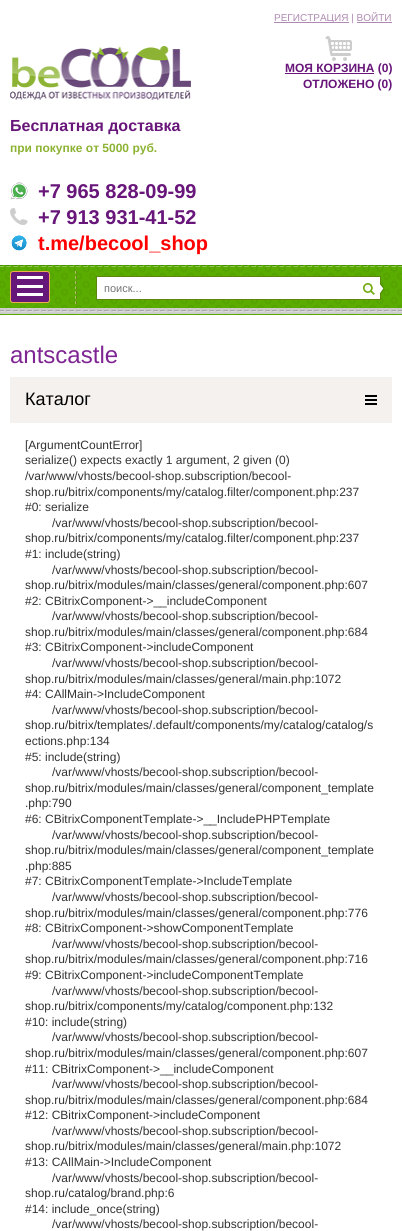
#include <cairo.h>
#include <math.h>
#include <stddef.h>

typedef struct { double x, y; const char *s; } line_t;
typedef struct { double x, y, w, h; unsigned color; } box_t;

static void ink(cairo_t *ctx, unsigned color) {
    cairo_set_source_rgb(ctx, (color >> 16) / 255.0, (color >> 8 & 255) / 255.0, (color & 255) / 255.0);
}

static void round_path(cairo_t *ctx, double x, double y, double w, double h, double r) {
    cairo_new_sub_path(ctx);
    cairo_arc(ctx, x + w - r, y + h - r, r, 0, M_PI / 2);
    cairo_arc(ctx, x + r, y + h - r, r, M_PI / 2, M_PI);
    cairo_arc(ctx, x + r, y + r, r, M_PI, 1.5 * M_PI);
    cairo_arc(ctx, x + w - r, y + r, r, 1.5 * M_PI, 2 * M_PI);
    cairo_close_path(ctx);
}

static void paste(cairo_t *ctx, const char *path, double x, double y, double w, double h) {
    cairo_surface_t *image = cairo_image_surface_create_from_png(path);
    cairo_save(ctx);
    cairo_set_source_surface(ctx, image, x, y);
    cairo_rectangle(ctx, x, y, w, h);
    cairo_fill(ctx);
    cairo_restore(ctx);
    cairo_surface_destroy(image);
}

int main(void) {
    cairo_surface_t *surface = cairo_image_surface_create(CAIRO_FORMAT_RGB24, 402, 1231);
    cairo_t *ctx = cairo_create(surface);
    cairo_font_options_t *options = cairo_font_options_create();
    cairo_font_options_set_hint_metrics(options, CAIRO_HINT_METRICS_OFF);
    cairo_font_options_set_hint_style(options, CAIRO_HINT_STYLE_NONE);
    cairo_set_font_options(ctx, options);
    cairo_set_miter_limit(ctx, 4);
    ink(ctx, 0xFFFFFF);
    cairo_paint(ctx);
    ink(ctx, 0xAE8AB3);
    cairo_rectangle(ctx, 274, 22, 75, 1);
    cairo_fill(ctx);
    cairo_select_font_face(ctx, "Liberation Sans", CAIRO_FONT_SLANT_NORMAL, CAIRO_FONT_WEIGHT_NORMAL);
    cairo_set_font_size(ctx, 10);
    cairo_move_to(ctx, 274, 21);
    cairo_show_text(ctx, "РЕГИСТРАЦИЯ | ВОЙТИ");
    cairo_rectangle(ctx, 357, 22, 35, 1);
    cairo_fill(ctx);
    paste(ctx, "media/1.png", 10, 46, 181, 54);
    paste(ctx, "media/2.png", 325, 36, 27, 25);
    ink(ctx, 0x68167A);
    cairo_rectangle(ctx, 285, 73, 89, 1);
    cairo_fill(ctx);
    cairo_select_font_face(ctx, "Liberation Sans", CAIRO_FONT_SLANT_NORMAL, CAIRO_FONT_WEIGHT_BOLD);
    cairo_set_font_size(ctx, 12);
    cairo_move_to(ctx, 285, 72);
    cairo_show_text(ctx, "МОЯ КОРЗИНА (0)");
    cairo_move_to(ctx, 303, 88);
    cairo_show_text(ctx, "ОТЛОЖЕНО (0)");
    cairo_set_font_size(ctx, 16);
    cairo_move_to(ctx, 10, 131);
    cairo_show_text(ctx, "Бесплатная доставка");
    cairo_set_font_size(ctx, 12);
    ink(ctx, 0x8CB333);
    cairo_move_to(ctx, 10, 152);
    cairo_show_text(ctx, "при покупке от 5000 руб.");
    paste(ctx, "media/3.png", 10, 182, 18, 18);
    cairo_set_font_size(ctx, 20);
    ink(ctx, 0x68167A);
    cairo_move_to(ctx, 38, 198);
    cairo_show_text(ctx, "+7 965 828-09-99");
    paste(ctx, "media/4.png", 10, 208, 18, 17);
    cairo_move_to(ctx, 38, 224);
    cairo_show_text(ctx, "+7 913 931-41-52");
    paste(ctx, "media/5.png", 11, 235, 16, 16);
    ink(ctx, 0xFF0000);
    cairo_move_to(ctx, 38, 250);
    cairo_show_text(ctx, "t.me/becool_shop");
    paste(ctx, "media/6.png", 0, 267, 402, 48);
    paste(ctx, "media/7.png", 0, 265, 402, 2);
    ink(ctx, 0x671679);
    round_path(ctx, 10.5, 271.5, 39, 31, 2.5);
    cairo_fill_preserve(ctx);
    ink(ctx, 0xF0AD4E);
    cairo_set_line_width(ctx, 1);
    cairo_stroke(ctx);
    {
        static const box_t items[] = {
            {17, 285, 26, 3, 0xFFFFFF},
            {17, 276, 26, 3, 0xFFFFFF},
            {17, 293, 26, 3, 0xFFFFFF},
        };
        for (size_t i = 0; i < sizeof items / sizeof *items; i++) {
            ink(ctx, items[i].color);
            cairo_rectangle(ctx, items[i].x, items[i].y, items[i].w, items[i].h);
            cairo_fill(ctx);
        }
    }
    cairo_new_path(ctx);
    cairo_move_to(ctx, 75.5, 271);
    cairo_line_to(ctx, 75.5, 304);
    ink(ctx, 0xA5C45F);
    cairo_set_dash(ctx, (double[]){3, 2}, 2, 0);
    cairo_stroke(ctx);
    cairo_new_path(ctx);
    cairo_move_to(ctx, 76.5, 271);
    cairo_line_to(ctx, 76.5, 304);
    ink(ctx, 0x618B0F);
    cairo_stroke(ctx);
    ink(ctx, 0xFFFFFF);
    cairo_rectangle(ctx, 96.5, 276.5, 284, 23);
    cairo_fill_preserve(ctx);
    ink(ctx, 0x5E860E);
    cairo_set_dash(ctx, NULL, 0, 0);
    cairo_stroke(ctx);
    cairo_select_font_face(ctx, "Liberation Sans", CAIRO_FONT_SLANT_NORMAL, CAIRO_FONT_WEIGHT_NORMAL);
    cairo_set_font_size(ctx, 11);
    ink(ctx, 0x757575);
    cairo_move_to(ctx, 104, 292);
    cairo_show_text(ctx, "поиск...");
    paste(ctx, "media/8.png", 363, 283, 12, 12);
    paste(ctx, "media/9.png", 380, 283, 5, 11);
    paste(ctx, "media/10.png", 0, 308, 402, 6);
    cairo_set_font_size(ctx, 24);
    ink(ctx, 0x7F2593);
    cairo_move_to(ctx, 10, 363);
    cairo_show_text(ctx, "antscastle");
    ink(ctx, 0xF5F1EE);
    cairo_rectangle(ctx, 10, 377, 382, 46);
    cairo_fill(ctx);
    cairo_set_font_size(ctx, 18);
    ink(ctx, 0x000000);
    cairo_move_to(ctx, 25, 405);
    cairo_show_text(ctx, "Каталог");
    {
        static const box_t items[] = {
            {365, 395, 12, 2, 0x000000},
            {365, 403, 12, 2, 0x000000},
            {365, 399, 12, 2, 0x000000},
        };
        for (size_t i = 0; i < sizeof items / sizeof *items; i++) {
            ink(ctx, items[i].color);
            cairo_rectangle(ctx, items[i].x, items[i].y, items[i].w, items[i].h);
            cairo_fill(ctx);
        }
    }
    cairo_set_font_size(ctx, 12);
    ink(ctx, 0x333333);
    {
        static const line_t items[] = {
            {25, 449, "[ArgumentCountError]"},
            {25, 464, "serialize() expects exactly 1 argument, 2 given (0)"},
            {25, 480, "/var/www/vhosts/becool-shop.subscription/becool-"},
            {25, 496, "shop.ru/bitrix/components/my/catalog.filter/component.php:237"},
            {25, 511, "#0: serialize"},
            {52, 527, "/var/www/vhosts/becool-shop.subscription/becool-"},
            {25, 542, "shop.ru/bitrix/components/my/catalog.filter/component.php:237"},
            {25, 558, "#1: include(string)"},
            {52, 574, "/var/www/vhosts/becool-shop.subscription/becool-"},
            {25, 589, "shop.ru/bitrix/modules/main/classes/general/component.php:607"},
            {25, 605, "#2: CBitrixComponent->__includeComponent"},
            {52, 620, "/var/www/vhosts/becool-shop.subscription/becool-"},
            {25, 636, "shop.ru/bitrix/modules/main/classes/general/component.php:684"},
            {25, 651, "#3: CBitrixComponent->includeComponent"},
            {52, 667, "/var/www/vhosts/becool-shop.subscription/becool-"},
            {25, 683, "shop.ru/bitrix/modules/main/classes/general/main.php:1072"},
            {25, 698, "#4: CAllMain->IncludeComponent"},
            {52, 714, "/var/www/vhosts/becool-shop.subscription/becool-"},
            {25, 729, "shop.ru/bitrix/templates/.default/components/my/catalog/catalog/s"},
            {25, 745, "ections.php:134"},
            {25, 761, "#5: include(string)"},
            {52, 776, "/var/www/vhosts/becool-shop.subscription/becool-"},
            {25, 792, "shop.ru/bitrix/modules/main/classes/general/component_template"},
            {25, 807, ".php:790"},
            {25, 823, "#6: CBitrixComponentTemplate->__IncludePHPTemplate"},
            {52, 839, "/var/www/vhosts/becool-shop.subscription/becool-"},
            {25, 854, "shop.ru/bitrix/modules/main/classes/general/component_template"},
            {25, 870, ".php:885"},
            {25, 885, "#7: CBitrixComponentTemplate->IncludeTemplate"},
            {52, 901, "/var/www/vhosts/becool-shop.subscription/becool-"},
            {25, 917, "shop.ru/bitrix/modules/main/classes/general/component.php:776"},
            {25, 932, "#8: CBitrixComponent->showComponentTemplate"},
            {52, 948, "/var/www/vhosts/becool-shop.subscription/becool-"},
            {25, 963, "shop.ru/bitrix/modules/main/classes/general/component.php:716"},
            {25, 979, "#9: CBitrixComponent->includeComponentTemplate"},
            {52, 995, "/var/www/vhosts/becool-shop.subscription/becool-"},
            {25, 1010, "shop.ru/bitrix/components/my/catalog/component.php:132"},
            {25, 1026, "#10: include(string)"},
            {52, 1041, "/var/www/vhosts/becool-shop.subscription/becool-"},
            {25, 1057, "shop.ru/bitrix/modules/main/classes/general/component.php:607"},
            {25, 1073, "#11: CBitrixComponent->__includeComponent"},
            {52, 1088, "/var/www/vhosts/becool-shop.subscription/becool-"},
            {25, 1104, "shop.ru/bitrix/modules/main/classes/general/component.php:684"},
            {25, 1119, "#12: CBitrixComponent->includeComponent"},
            {52, 1135, "/var/www/vhosts/becool-shop.subscription/becool-"},
            {25, 1150, "shop.ru/bitrix/modules/main/classes/general/main.php:1072"},
            {25, 1166, "#13: CAllMain->IncludeComponent"},
            {52, 1182, "/var/www/vhosts/becool-shop.subscription/becool-"},
            {25, 1197, "shop.ru/catalog/brand.php:6"},
            {25, 1213, "#14: include_once(string)"},
            {52, 1228, "/var/www/vhosts/becool-shop.subscription/becool-"},
        };
        for (size_t i = 0; i < sizeof items / sizeof *items; i++) {
            cairo_move_to(ctx, items[i].x, items[i].y);
            cairo_show_text(ctx, items[i].s);
        }
    }
    cairo_surface_write_to_png(surface, "image.png");
    cairo_font_options_destroy(options);
    cairo_destroy(ctx);
    cairo_surface_destroy(surface);
    return 0;
}
